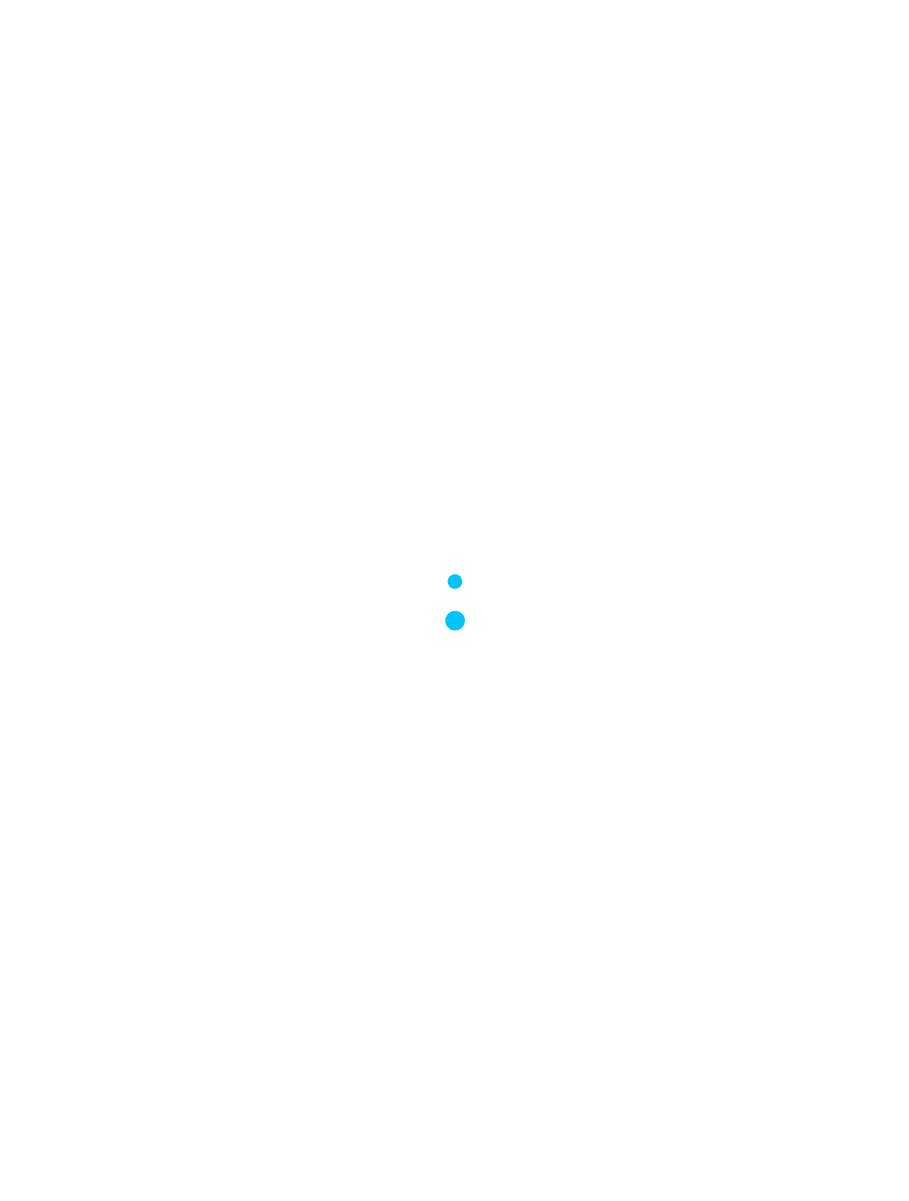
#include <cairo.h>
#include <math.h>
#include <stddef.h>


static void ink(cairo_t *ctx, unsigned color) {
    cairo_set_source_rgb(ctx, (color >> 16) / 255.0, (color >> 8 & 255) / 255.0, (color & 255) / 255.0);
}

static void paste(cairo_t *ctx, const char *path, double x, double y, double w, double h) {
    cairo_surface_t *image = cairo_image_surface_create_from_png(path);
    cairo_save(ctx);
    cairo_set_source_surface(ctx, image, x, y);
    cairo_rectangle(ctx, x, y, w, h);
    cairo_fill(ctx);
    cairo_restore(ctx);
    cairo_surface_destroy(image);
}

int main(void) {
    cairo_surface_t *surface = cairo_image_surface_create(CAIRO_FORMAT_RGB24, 909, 1201);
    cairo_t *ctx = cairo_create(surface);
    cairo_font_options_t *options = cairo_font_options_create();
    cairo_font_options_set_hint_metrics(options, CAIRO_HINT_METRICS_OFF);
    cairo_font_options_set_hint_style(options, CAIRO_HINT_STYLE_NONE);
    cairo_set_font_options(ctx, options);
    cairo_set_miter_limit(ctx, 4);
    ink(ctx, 0xFFFFFF);
    cairo_paint(ctx);
    paste(ctx, "media/1.png", 445, 574, 21, 57);
    cairo_surface_write_to_png(surface, "image.png");
    cairo_font_options_destroy(options);
    cairo_destroy(ctx);
    cairo_surface_destroy(surface);
    return 0;
}
